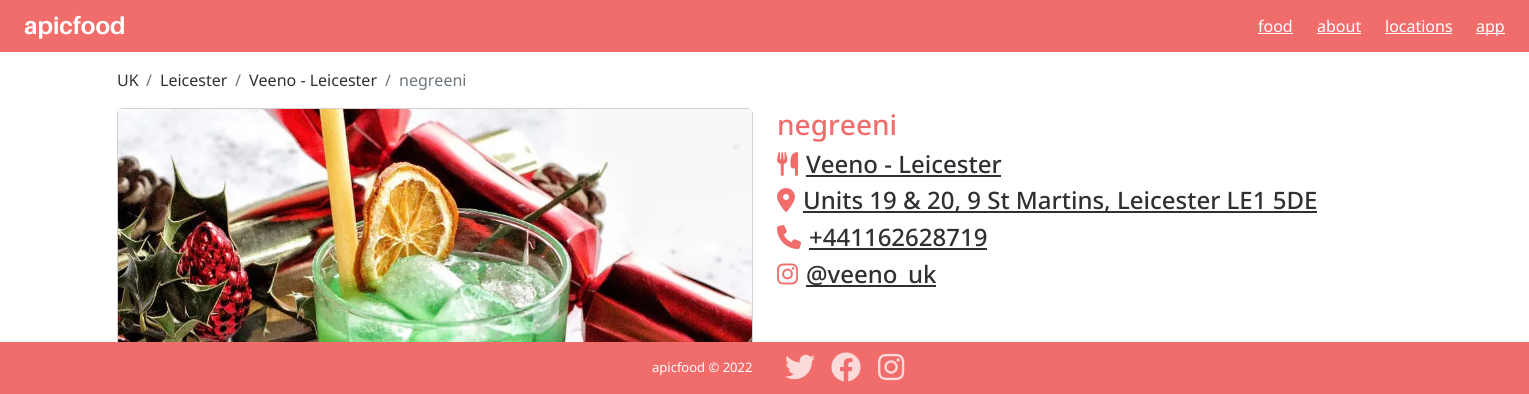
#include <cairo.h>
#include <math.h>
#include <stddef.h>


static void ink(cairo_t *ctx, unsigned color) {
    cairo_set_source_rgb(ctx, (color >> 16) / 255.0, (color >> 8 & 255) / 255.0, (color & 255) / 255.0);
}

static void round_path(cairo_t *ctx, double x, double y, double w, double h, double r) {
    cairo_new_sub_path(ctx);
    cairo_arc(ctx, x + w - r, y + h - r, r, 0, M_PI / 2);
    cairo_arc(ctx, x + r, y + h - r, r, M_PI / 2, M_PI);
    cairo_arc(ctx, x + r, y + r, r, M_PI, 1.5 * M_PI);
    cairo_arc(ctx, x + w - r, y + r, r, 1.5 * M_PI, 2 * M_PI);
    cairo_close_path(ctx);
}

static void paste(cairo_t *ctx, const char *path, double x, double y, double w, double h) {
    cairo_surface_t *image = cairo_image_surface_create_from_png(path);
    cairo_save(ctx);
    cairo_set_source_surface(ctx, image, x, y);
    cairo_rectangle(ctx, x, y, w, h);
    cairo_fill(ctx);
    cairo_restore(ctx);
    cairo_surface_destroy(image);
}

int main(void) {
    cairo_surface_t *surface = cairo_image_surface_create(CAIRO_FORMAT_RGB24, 1529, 394);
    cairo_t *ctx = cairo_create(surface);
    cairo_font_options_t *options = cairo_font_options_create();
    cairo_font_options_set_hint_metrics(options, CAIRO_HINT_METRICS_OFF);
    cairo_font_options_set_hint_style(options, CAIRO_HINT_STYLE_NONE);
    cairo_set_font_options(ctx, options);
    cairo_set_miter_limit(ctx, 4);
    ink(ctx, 0xFFFFFF);
    cairo_paint(ctx);
    ink(ctx, 0xF16D6C);
    cairo_rectangle(ctx, 0, 0, 1529, 52);
    cairo_fill(ctx);
    cairo_select_font_face(ctx, "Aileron", CAIRO_FONT_SLANT_NORMAL, CAIRO_FONT_WEIGHT_BOLD);
    cairo_set_font_size(ctx, 24);
    ink(ctx, 0xFFFFFF);
    cairo_move_to(ctx, 24, 34);
    cairo_show_text(ctx, "apicfood");
    cairo_select_font_face(ctx, "Noto Sans", CAIRO_FONT_SLANT_NORMAL, CAIRO_FONT_WEIGHT_NORMAL);
    cairo_set_font_size(ctx, 16);
    cairo_move_to(ctx, 1258, 32);
    cairo_show_text(ctx, "food");
    cairo_rectangle(ctx, 1258, 33, 35, 1);
    cairo_fill(ctx);
    cairo_move_to(ctx, 1317, 32);
    cairo_show_text(ctx, "about");
    cairo_rectangle(ctx, 1317, 33, 44, 1);
    cairo_fill(ctx);
    cairo_move_to(ctx, 1385, 32);
    cairo_show_text(ctx, "locations");
    cairo_rectangle(ctx, 1385, 33, 67, 1);
    cairo_fill(ctx);
    cairo_rectangle(ctx, 1476, 33, 29, 1);
    cairo_fill(ctx);
    cairo_move_to(ctx, 1476, 32);
    cairo_show_text(ctx, "app");
    ink(ctx, 0x2E3033);
    cairo_move_to(ctx, 117, 86);
    cairo_show_text(ctx, "UK");
    ink(ctx, 0x6C757D);
    cairo_move_to(ctx, 146, 86);
    cairo_show_text(ctx, "/");
    ink(ctx, 0x2E3033);
    cairo_move_to(ctx, 160, 86);
    cairo_show_text(ctx, "Leicester");
    ink(ctx, 0x6C757D);
    cairo_move_to(ctx, 235, 86);
    cairo_show_text(ctx, "/");
    ink(ctx, 0x2E3033);
    cairo_move_to(ctx, 249, 86);
    cairo_show_text(ctx, "Veeno - Leicester");
    ink(ctx, 0x6C757D);
    cairo_move_to(ctx, 385, 86);
    cairo_show_text(ctx, "/");
    cairo_move_to(ctx, 399, 86);
    cairo_show_text(ctx, "negreeni");
    round_path(ctx, 117.5, 108.5, 635, 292, 5.5);
    ink(ctx, 0xD2D2D2);
    cairo_set_line_width(ctx, 1);
    cairo_stroke(ctx);
    paste(ctx, "media/1.png", 118, 109, 634, 233);
    cairo_select_font_face(ctx, "Noto Sans Medium", CAIRO_FONT_SLANT_NORMAL, CAIRO_FONT_WEIGHT_NORMAL);
    cairo_set_font_size(ctx, 28);
    ink(ctx, 0xF16D6C);
    cairo_move_to(ctx, 777, 135);
    cairo_show_text(ctx, "negreeni");
    paste(ctx, "media/2.png", 777, 152, 21, 24);
    cairo_set_font_size(ctx, 24);
    ink(ctx, 0x2E3033);
    cairo_move_to(ctx, 806, 173);
    cairo_show_text(ctx, "Veeno - Leicester");
    cairo_rectangle(ctx, 806, 175, 195, 2);
    cairo_fill(ctx);
    paste(ctx, "media/3.png", 777, 188, 18, 24);
    cairo_rectangle(ctx, 803, 211, 514, 2);
    cairo_fill(ctx);
    cairo_move_to(ctx, 803, 209);
    cairo_show_text(ctx, "Units 19 & 20, 9 St Martins, Leicester LE1 5DE");
    paste(ctx, "media/4.png", 777, 225, 24, 24);
    cairo_move_to(ctx, 809, 246);
    cairo_show_text(ctx, "+441162628719");
    cairo_rectangle(ctx, 809, 248, 178, 2);
    cairo_fill(ctx);
    paste(ctx, "media/5.png", 777, 263, 21, 22);
    cairo_rectangle(ctx, 806, 285, 130, 2);
    cairo_fill(ctx);
    cairo_move_to(ctx, 806, 283);
    cairo_show_text(ctx, "@veeno_uk");
    ink(ctx, 0xF16D6C);
    cairo_rectangle(ctx, 0, 342, 1529, 52);
    cairo_fill(ctx);
    cairo_select_font_face(ctx, "Noto Sans", CAIRO_FONT_SLANT_NORMAL, CAIRO_FONT_WEIGHT_NORMAL);
    cairo_set_font_size(ctx, 13);
    ink(ctx, 0xFFFFFF);
    cairo_move_to(ctx, 652, 372);
    cairo_show_text(ctx, "apicfood © 2022");
    paste(ctx, "media/6.png", 785, 354, 30, 26);
    paste(ctx, "media/7.png", 831, 352, 30, 30);
    paste(ctx, "media/8.png", 878, 353, 27, 28);
    cairo_surface_write_to_png(surface, "image.png");
    cairo_font_options_destroy(options);
    cairo_destroy(ctx);
    cairo_surface_destroy(surface);
    return 0;
}
